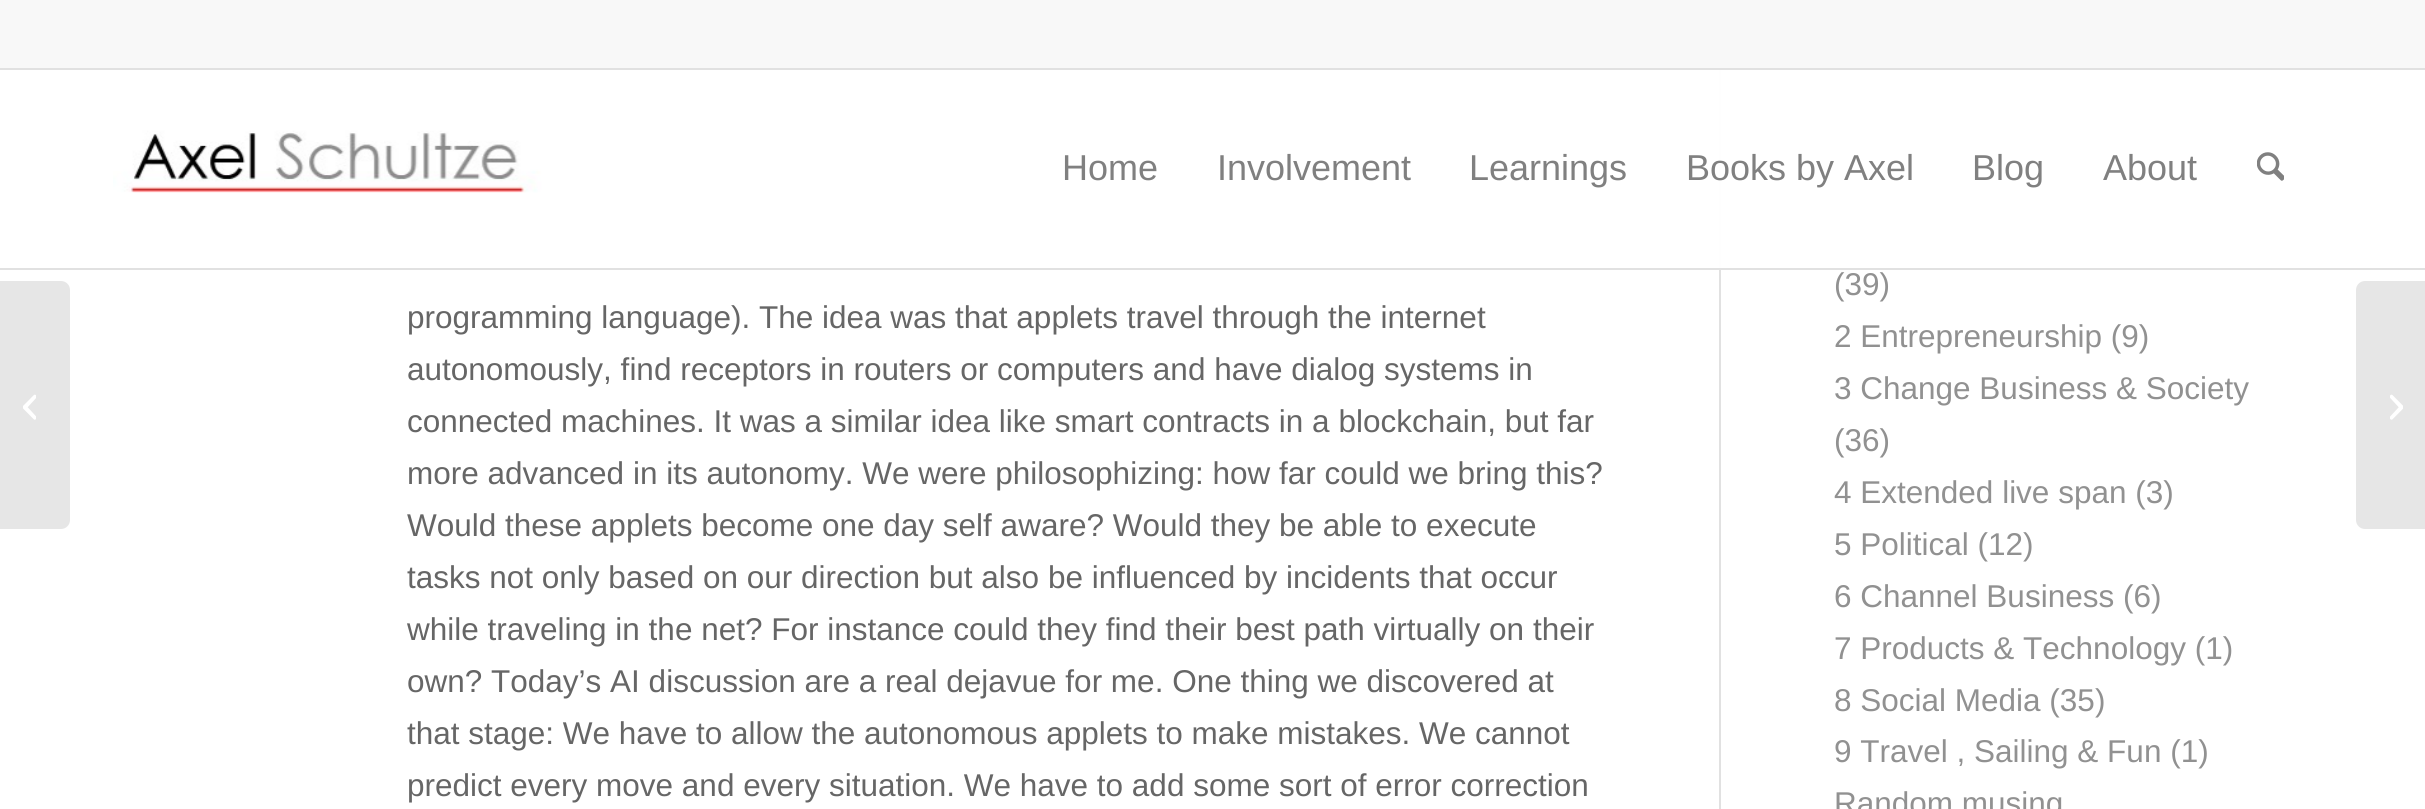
#include <cairo.h>
#include <math.h>
#include <stddef.h>

typedef struct { double x, y; const char *s; } line_t;

static void ink(cairo_t *ctx, unsigned color) {
    cairo_set_source_rgb(ctx, (color >> 16) / 255.0, (color >> 8 & 255) / 255.0, (color & 255) / 255.0);
}

static void paste(cairo_t *ctx, const char *path, double x, double y, double w, double h) {
    cairo_surface_t *image = cairo_image_surface_create_from_png(path);
    cairo_save(ctx);
    cairo_set_source_surface(ctx, image, x, y);
    cairo_rectangle(ctx, x, y, w, h);
    cairo_fill(ctx);
    cairo_restore(ctx);
    cairo_surface_destroy(image);
}

int main(void) {
    cairo_surface_t *surface = cairo_image_surface_create(CAIRO_FORMAT_RGB24, 2425, 809);
    cairo_t *ctx = cairo_create(surface);
    cairo_font_options_t *options = cairo_font_options_create();
    cairo_font_options_set_hint_metrics(options, CAIRO_HINT_METRICS_OFF);
    cairo_font_options_set_hint_style(options, CAIRO_HINT_STYLE_NONE);
    cairo_set_font_options(ctx, options);
    cairo_set_miter_limit(ctx, 4);
    ink(ctx, 0xFFFFFF);
    cairo_paint(ctx);
    ink(ctx, 0xF8F8F8);
    cairo_rectangle(ctx, 0, 0, 2425, 68);
    cairo_fill(ctx);
    ink(ctx, 0xE1E1E1);
    cairo_rectangle(ctx, 0, 68, 2425, 2);
    cairo_fill(ctx);
    cairo_rectangle(ctx, 1719, 70, 2, 739);
    cairo_fill(ctx);
    cairo_set_source_rgba(ctx, 1, 1, 1, 0.95);
    cairo_rectangle(ctx, 1719, 70, 2, 198);
    cairo_fill(ctx);
    ink(ctx, 0xE1E1E1);
    cairo_rectangle(ctx, 0, 268, 2425, 2);
    cairo_fill(ctx);
    paste(ctx, "media/1.png", 113, 70, 432, 198);
    cairo_select_font_face(ctx, "Liberation Sans", CAIRO_FONT_SLANT_NORMAL, CAIRO_FONT_WEIGHT_NORMAL);
    cairo_set_font_size(ctx, 36);
    ink(ctx, 0x808080);
    {
        static const line_t items[] = {
            {1062, 180, "Home"},
            {1217, 180, "Involvement"},
            {1469, 180, "Learnings"},
            {1686, 180, "Books by Axel"},
            {1972, 180, "Blog"},
            {2103, 180, "About"},
        };
        for (size_t i = 0; i < sizeof items / sizeof *items; i++) {
            cairo_move_to(ctx, items[i].x, items[i].y);
            cairo_show_text(ctx, items[i].s);
        }
    }
    paste(ctx, "media/2.png", 2257, 152, 27, 29);
    ink(ctx, 0xE6E6E6);
    cairo_new_path(ctx);
    cairo_move_to(ctx, 0, 281);
    cairo_line_to(ctx, 61, 281);
    cairo_curve_to(ctx, 66, 281, 70, 285, 70, 290);
    cairo_line_to(ctx, 70, 520);
    cairo_curve_to(ctx, 70, 525, 66, 529, 61, 529);
    cairo_line_to(ctx, 0, 529);
    cairo_close_path(ctx);
    cairo_fill(ctx);
    paste(ctx, "media/3.png", 23, 394, 13, 26);
    cairo_set_font_size(ctx, 31.5);
    ink(ctx, 0x666666);
    {
        static const line_t items[] = {
            {407, 328, "programming language). The idea was that applets travel through the internet"},
            {407, 380, "autonomously, find receptors in routers or computers and have dialog systems in"},
            {407, 432, "connected machines. It was a similar idea like smart contracts in a blockchain, but far"},
            {407, 484, "more advanced in its autonomy. We were philosophizing: how far could we bring this?"},
            {407, 536, "Would these applets become one day self aware? Would they be able to execute"},
            {407, 588, "tasks not only based on our direction but also be influenced by incidents that occur"},
            {407, 640, "while traveling in the net? For instance could they find their best path virtually on their"},
            {407, 692, "own? Today’s AI discussion are a real dejavue for me. One thing we discovered at"},
            {407, 744, "that stage: We have to allow the autonomous applets to make mistakes. We cannot"},
            {407, 796, "predict every move and every situation. We have to add some sort of error correction"},
        };
        for (size_t i = 0; i < sizeof items / sizeof *items; i++) {
            cairo_move_to(ctx, items[i].x, items[i].y);
            cairo_show_text(ctx, items[i].s);
        }
    }
    ink(ctx, 0x919191);
    {
        static const line_t items[] = {
            {1834, 295, "(39)"},
            {1834, 347, "2 Entrepreneurship (9)"},
            {1834, 399, "3 Change Business & Society"},
            {1834, 451, "(36)"},
            {1834, 503, "4 Extended live span (3)"},
            {1834, 555, "5 Political (12)"},
            {1834, 607, "6 Channel Business (6)"},
            {1834, 659, "7 Products & Technology (1)"},
            {1834, 711, "8 Social Media (35)"},
            {1834, 762, "9 Travel , Sailing & Fun (1)"},
            {1834, 814, "Random musing"},
        };
        for (size_t i = 0; i < sizeof items / sizeof *items; i++) {
            cairo_move_to(ctx, items[i].x, items[i].y);
            cairo_show_text(ctx, items[i].s);
        }
    }
    ink(ctx, 0xE6E6E6);
    cairo_new_path(ctx);
    cairo_move_to(ctx, 2365, 281);
    cairo_line_to(ctx, 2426, 281);
    cairo_line_to(ctx, 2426, 529);
    cairo_line_to(ctx, 2365, 529);
    cairo_curve_to(ctx, 2360, 529, 2356, 525, 2356, 520);
    cairo_line_to(ctx, 2356, 290);
    cairo_curve_to(ctx, 2356, 285, 2360, 281, 2365, 281);
    cairo_close_path(ctx);
    cairo_fill(ctx);
    paste(ctx, "media/4.png", 2390, 394, 13, 26);
    cairo_surface_write_to_png(surface, "image.png");
    cairo_font_options_destroy(options);
    cairo_destroy(ctx);
    cairo_surface_destroy(surface);
    return 0;
}
